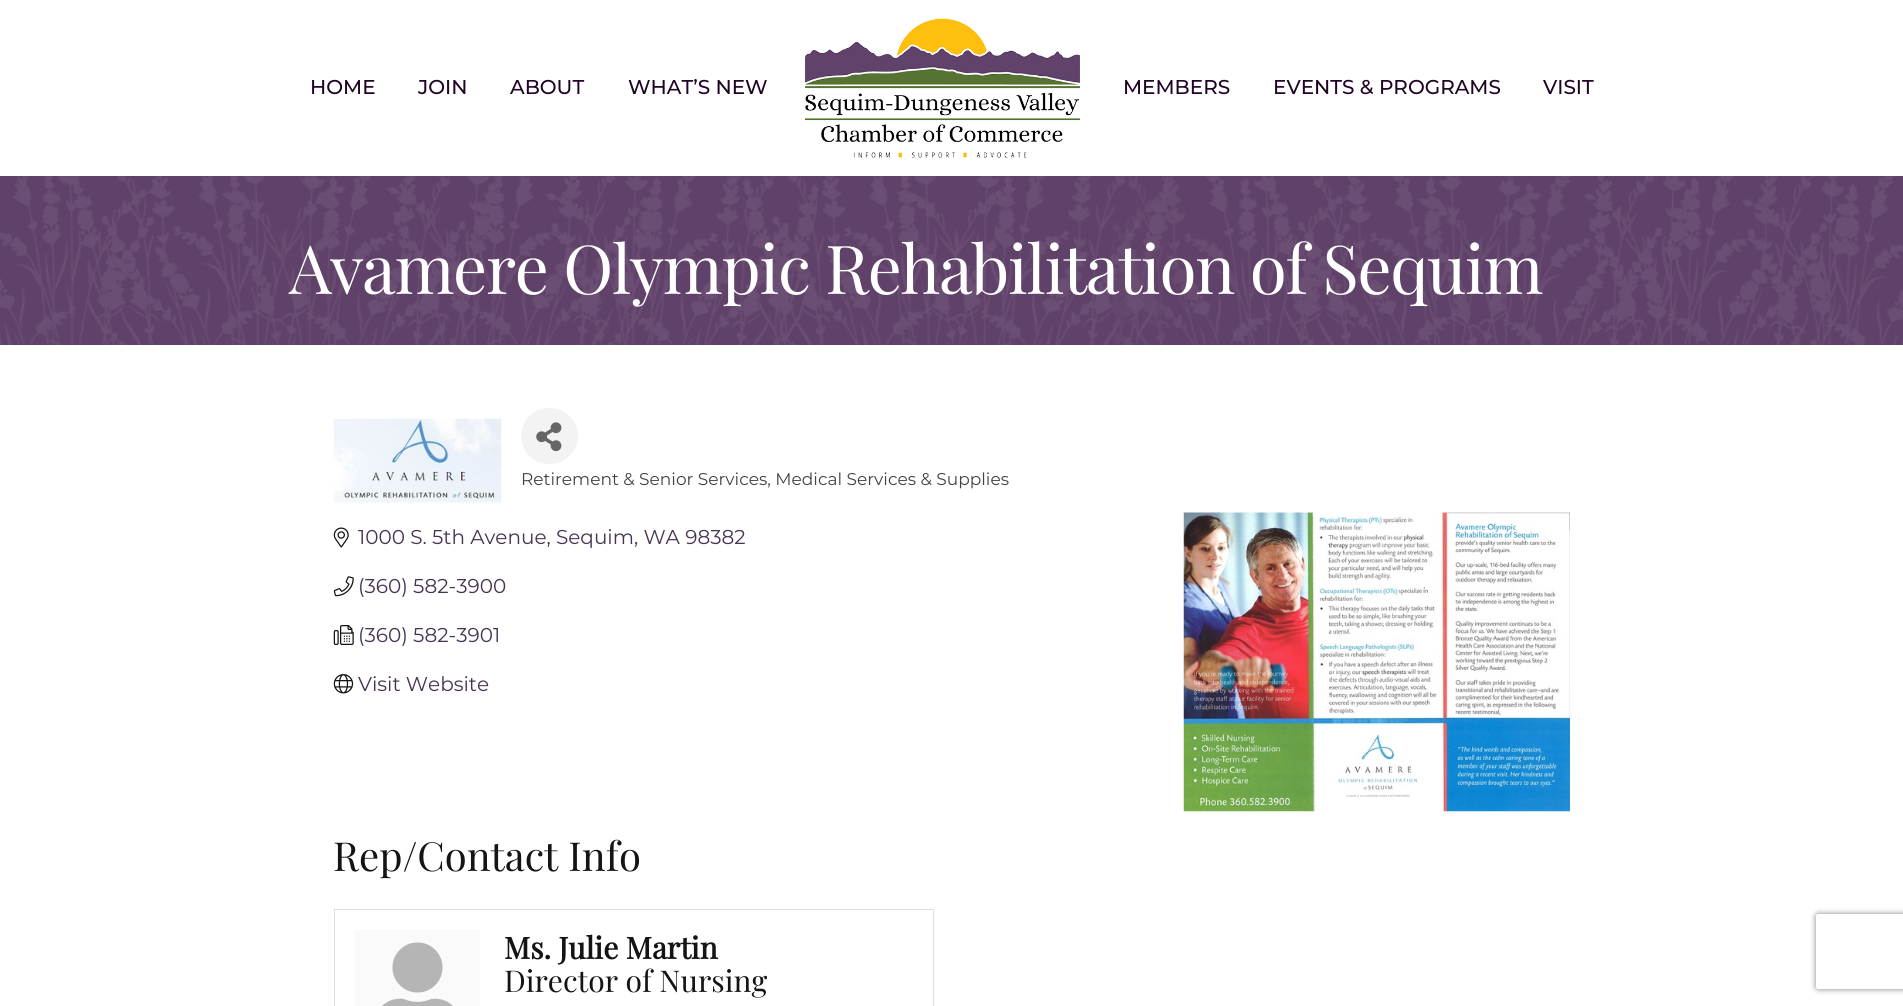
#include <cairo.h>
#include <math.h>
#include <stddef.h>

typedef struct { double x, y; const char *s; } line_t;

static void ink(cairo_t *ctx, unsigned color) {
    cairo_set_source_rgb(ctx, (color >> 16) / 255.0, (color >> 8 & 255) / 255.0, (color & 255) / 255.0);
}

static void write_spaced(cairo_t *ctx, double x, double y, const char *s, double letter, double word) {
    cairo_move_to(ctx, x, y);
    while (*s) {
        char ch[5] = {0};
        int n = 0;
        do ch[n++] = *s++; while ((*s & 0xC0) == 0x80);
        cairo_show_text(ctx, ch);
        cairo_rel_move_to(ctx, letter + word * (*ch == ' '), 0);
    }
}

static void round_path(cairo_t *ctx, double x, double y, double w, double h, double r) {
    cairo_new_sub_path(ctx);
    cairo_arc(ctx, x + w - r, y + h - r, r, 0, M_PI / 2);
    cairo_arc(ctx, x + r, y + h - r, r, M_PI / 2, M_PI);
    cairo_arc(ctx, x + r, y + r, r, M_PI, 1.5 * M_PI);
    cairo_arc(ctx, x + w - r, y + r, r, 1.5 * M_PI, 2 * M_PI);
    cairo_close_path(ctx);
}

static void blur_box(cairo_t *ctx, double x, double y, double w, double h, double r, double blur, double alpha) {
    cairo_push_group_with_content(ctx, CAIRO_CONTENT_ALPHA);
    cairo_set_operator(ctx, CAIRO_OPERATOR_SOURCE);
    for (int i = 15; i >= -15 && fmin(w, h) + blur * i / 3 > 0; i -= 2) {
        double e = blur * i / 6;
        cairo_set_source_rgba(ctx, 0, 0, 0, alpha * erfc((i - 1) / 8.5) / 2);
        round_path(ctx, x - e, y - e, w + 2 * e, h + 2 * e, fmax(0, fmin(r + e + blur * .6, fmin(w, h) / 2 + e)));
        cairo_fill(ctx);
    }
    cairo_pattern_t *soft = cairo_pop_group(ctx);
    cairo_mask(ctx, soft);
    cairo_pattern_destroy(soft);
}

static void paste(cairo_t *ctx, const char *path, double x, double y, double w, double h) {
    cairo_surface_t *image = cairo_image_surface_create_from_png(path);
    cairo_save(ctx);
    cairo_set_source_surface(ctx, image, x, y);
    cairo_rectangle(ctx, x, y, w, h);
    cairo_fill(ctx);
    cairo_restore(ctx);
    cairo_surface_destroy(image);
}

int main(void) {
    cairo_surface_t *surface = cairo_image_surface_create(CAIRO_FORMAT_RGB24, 1903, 1006);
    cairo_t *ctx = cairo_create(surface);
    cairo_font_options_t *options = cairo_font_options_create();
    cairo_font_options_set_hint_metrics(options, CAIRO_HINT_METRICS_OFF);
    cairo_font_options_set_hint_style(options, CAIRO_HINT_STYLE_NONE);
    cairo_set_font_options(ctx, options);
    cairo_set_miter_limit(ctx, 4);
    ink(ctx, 0xFFFFFF);
    cairo_paint(ctx);
    cairo_select_font_face(ctx, "Montserrat Medium", CAIRO_FONT_SLANT_NORMAL, CAIRO_FONT_WEIGHT_NORMAL);
    cairo_set_font_size(ctx, 20);
    ink(ctx, 0x200325);
    {
        static const line_t items[] = {
            {310, 94, "HOME"},
            {418, 94, "JOIN"},
            {510, 94, "ABOUT"},
            {628, 94, "WHAT’S NEW"},
        };
        for (size_t i = 0; i < sizeof items / sizeof *items; i++) {
            cairo_move_to(ctx, items[i].x, items[i].y);
            cairo_show_text(ctx, items[i].s);
        }
    }
    paste(ctx, "media/1.png", 805, 18, 275, 140);
    {
        static const line_t items[] = {
            {1123, 94, "MEMBERS"},
            {1273, 94, "EVENTS & PROGRAMS"},
            {1543, 94, "VISIT"},
        };
        for (size_t i = 0; i < sizeof items / sizeof *items; i++) {
            cairo_move_to(ctx, items[i].x, items[i].y);
            cairo_show_text(ctx, items[i].s);
        }
    }
    ink(ctx, 0x604169);
    cairo_rectangle(ctx, 0, 176, 1903, 169);
    cairo_fill(ctx);
    paste(ctx, "media/2.png", 0, 176, 1903, 169);
    cairo_select_font_face(ctx, "Playfair Display", CAIRO_FONT_SLANT_NORMAL, CAIRO_FONT_WEIGHT_NORMAL);
    cairo_set_font_size(ctx, 67.5);
    ink(ctx, 0xFFFFFF);
    write_spaced(ctx, 289, 294, "Avamere Olympic Rehabilitation of Sequim", -1.25, 0);
    paste(ctx, "media/3.png", 333, 418, 169, 85);
    ink(ctx, 0xF3F3F3);
    round_path(ctx, 521, 408, 57, 56, 28);
    cairo_fill(ctx);
    paste(ctx, "media/4.png", 536, 422, 26, 30);
    cairo_select_font_face(ctx, "Montserrat", CAIRO_FONT_SLANT_NORMAL, CAIRO_FONT_WEIGHT_NORMAL);
    cairo_set_font_size(ctx, 17);
    ink(ctx, 0x434343);
    cairo_move_to(ctx, 521, 485);
    cairo_show_text(ctx, "Retirement & Senior Services, Medical Services & Supplies");
    paste(ctx, "media/5.png", 333, 527, 16, 21);
    cairo_set_font_size(ctx, 20);
    ink(ctx, 0x473352);
    cairo_move_to(ctx, 358, 544);
    cairo_show_text(ctx, "1000 S. 5th Avenue, Sequim, WA 98382");
    paste(ctx, "media/6.png", 333, 576, 21, 21);
    cairo_move_to(ctx, 358, 593);
    cairo_show_text(ctx, "(360) 582-3900");
    paste(ctx, "media/7.png", 333, 625, 21, 20);
    cairo_move_to(ctx, 358, 642);
    cairo_show_text(ctx, "(360) 582-3901");
    paste(ctx, "media/8.png", 333, 674, 21, 20);
    cairo_move_to(ctx, 358, 691);
    cairo_show_text(ctx, "Visit Website");
    paste(ctx, "media/9.png", 1183, 512, 387, 300);
    cairo_select_font_face(ctx, "Playfair Display", CAIRO_FONT_SLANT_NORMAL, CAIRO_FONT_WEIGHT_NORMAL);
    cairo_set_font_size(ctx, 40);
    ink(ctx, 0x141414);
    cairo_move_to(ctx, 333, 871);
    cairo_show_text(ctx, "Rep/Contact Info");
    cairo_rectangle(ctx, 334.5, 909.5, 599, 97);
    ink(ctx, 0xDFDFDF);
    cairo_set_line_width(ctx, 1);
    cairo_stroke(ctx);
    ink(ctx, 0xFAFAFA);
    cairo_rectangle(ctx, 355, 930, 125, 76);
    cairo_fill(ctx);
    paste(ctx, "media/10.png", 382, 942, 71, 64);
    cairo_select_font_face(ctx, "Playfair Display", CAIRO_FONT_SLANT_NORMAL, CAIRO_FONT_WEIGHT_BOLD);
    cairo_set_font_size(ctx, 30);
    ink(ctx, 0x141414);
    cairo_move_to(ctx, 504, 959);
    cairo_show_text(ctx, "Ms. Julie Martin");
    cairo_select_font_face(ctx, "Playfair Display", CAIRO_FONT_SLANT_NORMAL, CAIRO_FONT_WEIGHT_NORMAL);
    cairo_move_to(ctx, 504, 992);
    cairo_show_text(ctx, "Director of Nursing");
    cairo_save(ctx);
    cairo_set_fill_rule(ctx, CAIRO_FILL_RULE_EVEN_ODD);
    cairo_new_path(ctx);
    cairo_move_to(ctx, 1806, 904);
    cairo_line_to(ctx, 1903, 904);
    cairo_line_to(ctx, 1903, 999);
    cairo_line_to(ctx, 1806, 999);
    cairo_close_path(ctx);
    cairo_move_to(ctx, 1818.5, 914);
    cairo_line_to(ctx, 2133.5, 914);
    cairo_curve_to(ctx, 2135, 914, 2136, 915, 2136, 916.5);
    cairo_line_to(ctx, 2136, 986.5);
    cairo_curve_to(ctx, 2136, 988, 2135, 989, 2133.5, 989);
    cairo_line_to(ctx, 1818.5, 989);
    cairo_curve_to(ctx, 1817, 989, 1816, 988, 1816, 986.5);
    cairo_line_to(ctx, 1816, 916.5);
    cairo_curve_to(ctx, 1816, 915, 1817, 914, 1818.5, 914);
    cairo_close_path(ctx);
    cairo_clip(ctx);
    ink(ctx, 0x808080);
    blur_box(ctx, 1816, 914, 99, 75, 2.5, 3, 1);
    cairo_restore(ctx);
    cairo_surface_write_to_png(surface, "image.png");
    cairo_font_options_destroy(options);
    cairo_destroy(ctx);
    cairo_surface_destroy(surface);
    return 0;
}
